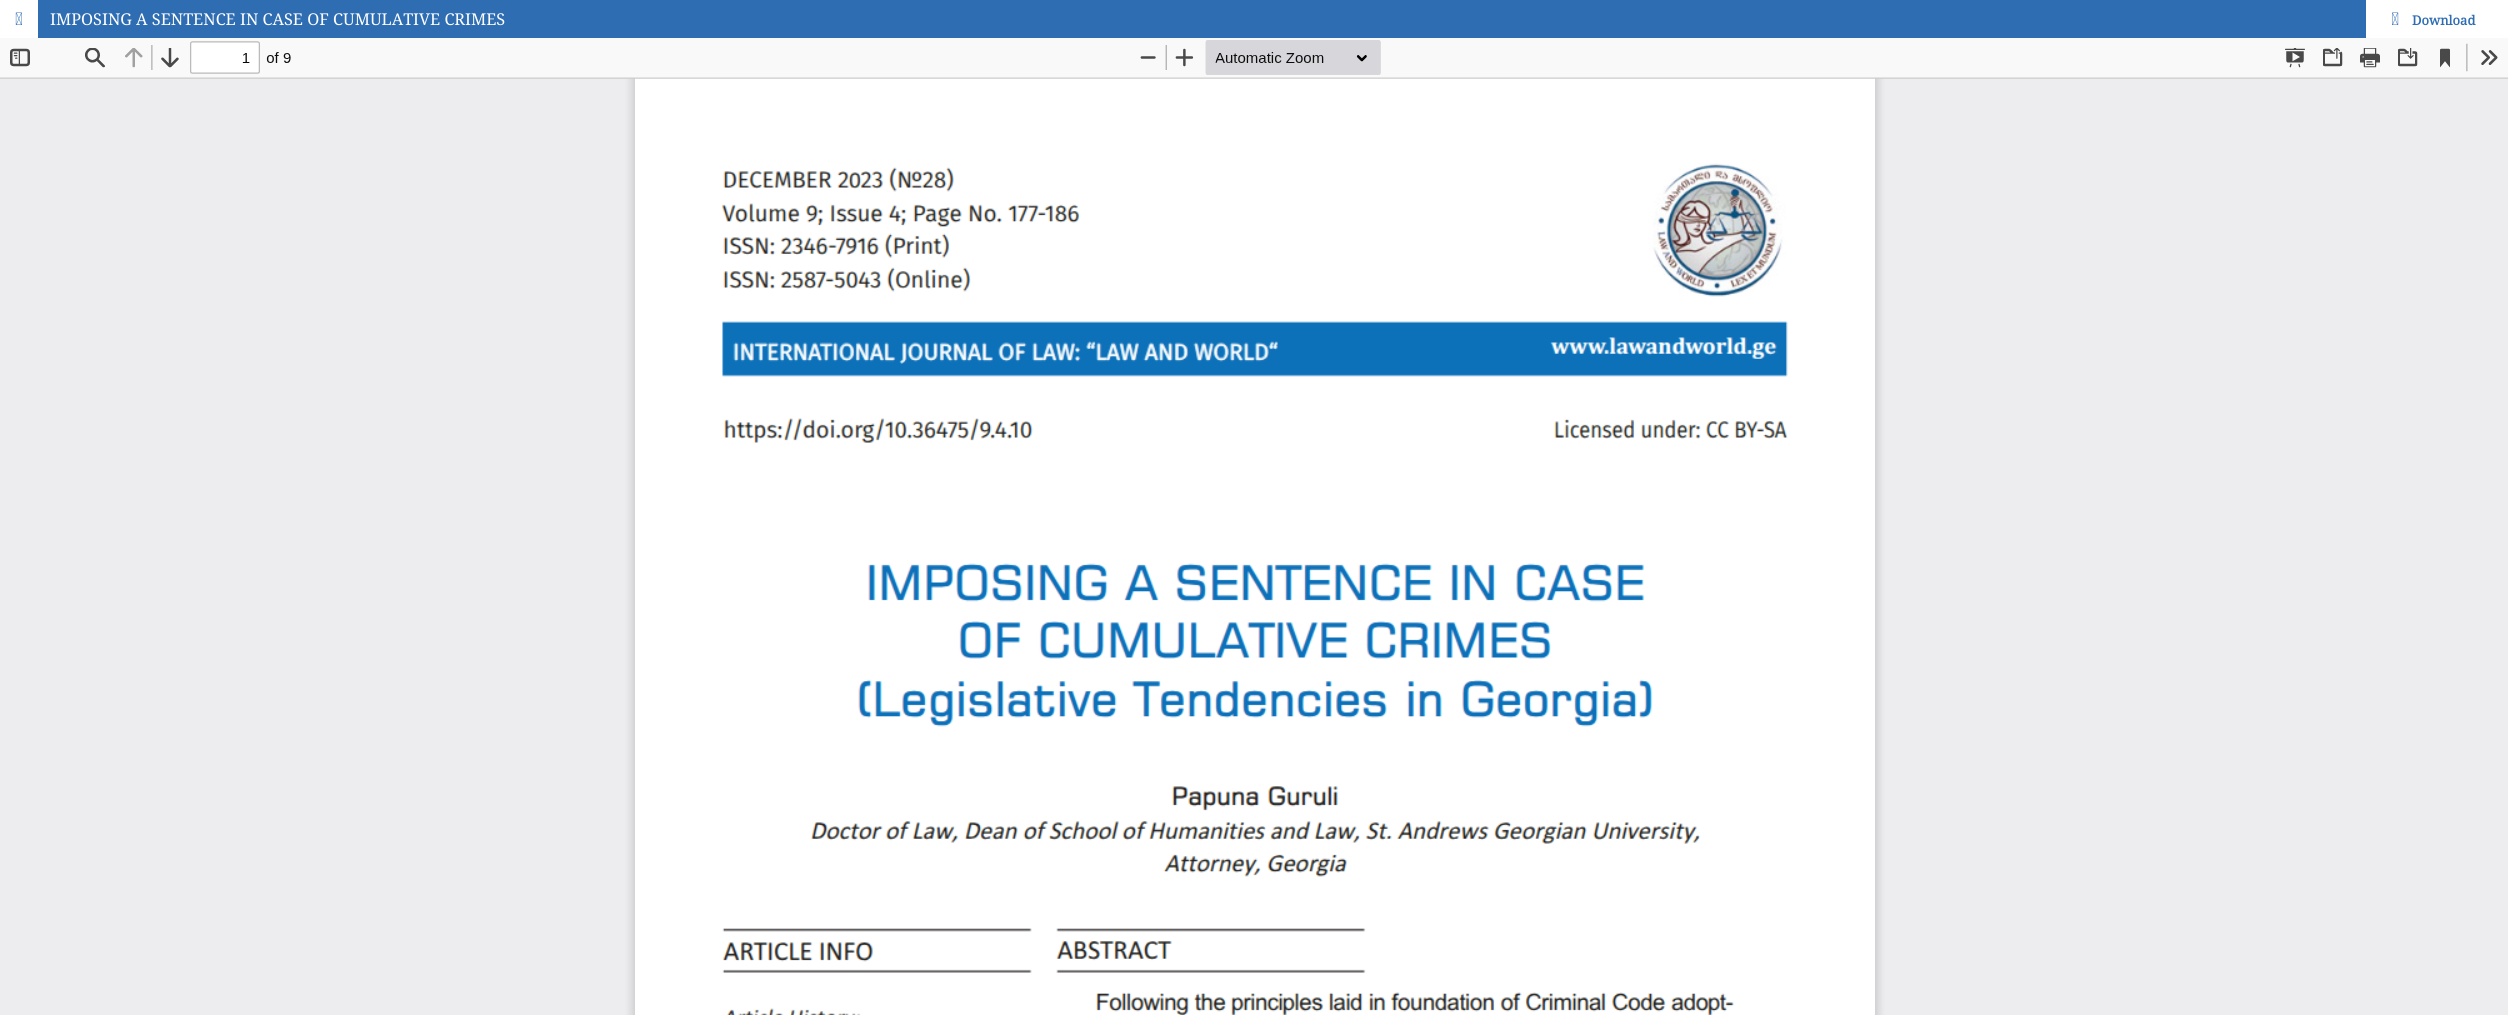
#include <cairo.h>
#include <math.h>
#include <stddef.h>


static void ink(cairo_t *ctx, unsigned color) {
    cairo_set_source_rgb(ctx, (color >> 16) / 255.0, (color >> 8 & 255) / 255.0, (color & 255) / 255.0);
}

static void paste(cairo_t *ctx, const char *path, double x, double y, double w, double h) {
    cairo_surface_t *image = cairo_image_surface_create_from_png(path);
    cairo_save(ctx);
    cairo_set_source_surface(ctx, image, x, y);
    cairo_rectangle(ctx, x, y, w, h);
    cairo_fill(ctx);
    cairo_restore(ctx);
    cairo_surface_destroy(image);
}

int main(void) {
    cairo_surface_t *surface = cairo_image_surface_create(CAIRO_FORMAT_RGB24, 2508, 1015);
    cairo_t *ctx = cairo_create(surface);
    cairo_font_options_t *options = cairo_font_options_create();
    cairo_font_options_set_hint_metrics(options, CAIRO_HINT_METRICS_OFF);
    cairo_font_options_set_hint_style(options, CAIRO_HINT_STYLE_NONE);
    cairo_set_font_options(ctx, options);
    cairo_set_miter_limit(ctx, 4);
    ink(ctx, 0xFFFFFF);
    cairo_paint(ctx);
    ink(ctx, 0x2F6DB2);
    cairo_rectangle(ctx, 38, 0, 2328, 38);
    cairo_fill(ctx);
    paste(ctx, "media/1.png", 15, 12, 7, 13);
    cairo_select_font_face(ctx, "Noto Serif", CAIRO_FONT_SLANT_NORMAL, CAIRO_FONT_WEIGHT_NORMAL);
    cairo_set_font_size(ctx, 16.25);
    ink(ctx, 0xFFFFFF);
    cairo_move_to(ctx, 50, 25);
    cairo_show_text(ctx, "IMPOSING A SENTENCE IN CASE OF CUMULATIVE CRIMES");
    paste(ctx, "media/2.png", 2392, 12, 7, 13);
    cairo_select_font_face(ctx, "Noto Serif", CAIRO_FONT_SLANT_NORMAL, CAIRO_FONT_WEIGHT_BOLD);
    cairo_set_font_size(ctx, 13);
    ink(ctx, 0x2F6DB2);
    cairo_move_to(ctx, 2412, 25);
    cairo_show_text(ctx, "Download");
    paste(ctx, "media/3.png", 0, 38, 2508, 977);
    cairo_surface_write_to_png(surface, "image.png");
    cairo_font_options_destroy(options);
    cairo_destroy(ctx);
    cairo_surface_destroy(surface);
    return 0;
}
